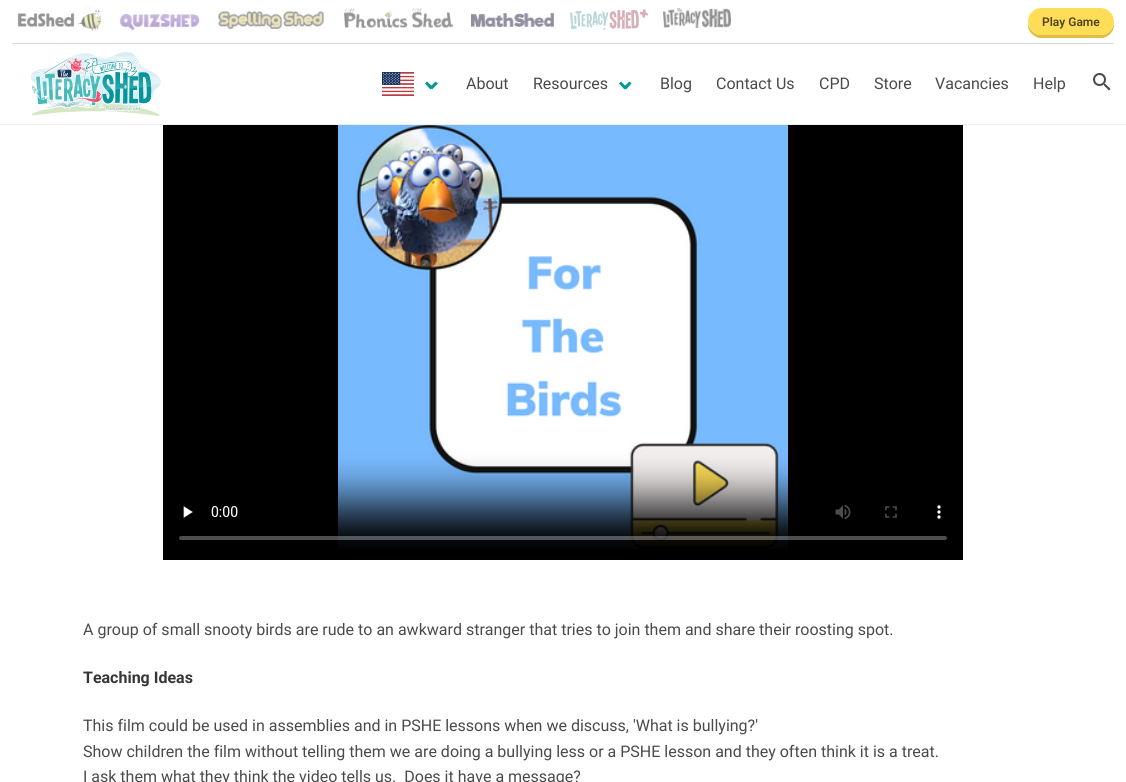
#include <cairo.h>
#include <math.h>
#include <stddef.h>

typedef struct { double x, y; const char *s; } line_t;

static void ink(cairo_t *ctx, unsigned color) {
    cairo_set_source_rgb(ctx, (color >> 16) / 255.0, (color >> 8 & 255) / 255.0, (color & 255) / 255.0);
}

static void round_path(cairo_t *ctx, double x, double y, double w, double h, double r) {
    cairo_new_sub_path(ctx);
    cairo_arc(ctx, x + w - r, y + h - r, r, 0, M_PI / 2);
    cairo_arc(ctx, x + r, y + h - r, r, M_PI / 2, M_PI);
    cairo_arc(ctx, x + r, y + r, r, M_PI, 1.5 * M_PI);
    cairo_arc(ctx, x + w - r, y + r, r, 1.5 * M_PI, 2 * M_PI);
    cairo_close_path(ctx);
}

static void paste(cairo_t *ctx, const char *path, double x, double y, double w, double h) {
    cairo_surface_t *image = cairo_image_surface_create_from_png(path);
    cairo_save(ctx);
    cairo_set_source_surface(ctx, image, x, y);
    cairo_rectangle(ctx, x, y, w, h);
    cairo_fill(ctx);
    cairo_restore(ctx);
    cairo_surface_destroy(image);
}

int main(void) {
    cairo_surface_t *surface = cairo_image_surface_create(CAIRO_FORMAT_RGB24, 1126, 782);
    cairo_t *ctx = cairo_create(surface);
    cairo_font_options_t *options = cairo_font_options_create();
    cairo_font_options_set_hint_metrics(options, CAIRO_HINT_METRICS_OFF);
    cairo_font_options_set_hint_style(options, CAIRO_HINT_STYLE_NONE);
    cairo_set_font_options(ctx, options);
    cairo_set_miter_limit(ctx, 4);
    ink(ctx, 0xFFFFFF);
    cairo_paint(ctx);
    ink(ctx, 0xDBDBDB);
    cairo_rectangle(ctx, 12, 43, 1102, 1);
    cairo_fill(ctx);
    paste(ctx, "media/1.png", 17, 6, 85, 25);
    paste(ctx, "media/2.png", 119, 14, 81, 16);
    paste(ctx, "media/3.png", 218, 10, 106, 19);
    paste(ctx, "media/4.png", 344, 8, 109, 20);
    paste(ctx, "media/5.png", 471, 13, 83, 14);
    paste(ctx, "media/6.png", 570, 9, 78, 21);
    paste(ctx, "media/7.png", 663, 8, 68, 20);
    ink(ctx, 0xDEBF40);
    cairo_new_path(ctx);
    cairo_move_to(ctx, 1028, 23);
    cairo_curve_to(ctx, 1027, 30, 1032, 36, 1039, 38);
    cairo_line_to(ctx, 1103, 38);
    cairo_curve_to(ctx, 1110, 36, 1115, 30, 1114, 23);
    cairo_curve_to(ctx, 1113, 30, 1107, 35, 1100, 35);
    cairo_line_to(ctx, 1042, 35);
    cairo_curve_to(ctx, 1035, 35, 1029, 30, 1028, 23);
    cairo_close_path(ctx);
    cairo_fill(ctx);
    ink(ctx, 0xFFDD57);
    round_path(ctx, 1028, 8, 86, 27, 13.5);
    cairo_fill(ctx);
    cairo_select_font_face(ctx, "Roboto SemiBold", CAIRO_FONT_SLANT_NORMAL, CAIRO_FONT_WEIGHT_NORMAL);
    cairo_set_font_size(ctx, 12);
    ink(ctx, 0x4D421A);
    cairo_move_to(ctx, 1042, 26);
    cairo_show_text(ctx, "Play Game");
    ink(ctx, 0xEEEEEE);
    cairo_rectangle(ctx, 0, 124, 1126, 1);
    cairo_fill(ctx);
    paste(ctx, "media/8.png", 30, 52, 131, 64);
    paste(ctx, "media/9.png", 382, 72, 32, 24);
    ink(ctx, 0x029999);
    cairo_new_path(ctx);
    cairo_move_to(ctx, 430, 87);
    cairo_line_to(ctx, 435.5, 81.5);
    cairo_line_to(ctx, 438, 83.5);
    cairo_line_to(ctx, 432, 89.5);
    cairo_close_path(ctx);
    cairo_fill(ctx);
    cairo_new_path(ctx);
    cairo_move_to(ctx, 425, 83.5);
    cairo_line_to(ctx, 427, 81.5);
    cairo_line_to(ctx, 433, 87);
    cairo_line_to(ctx, 430.5, 89.5);
    cairo_close_path(ctx);
    cairo_fill(ctx);
    cairo_select_font_face(ctx, "Roboto", CAIRO_FONT_SLANT_NORMAL, CAIRO_FONT_WEIGHT_NORMAL);
    cairo_set_font_size(ctx, 16);
    ink(ctx, 0x4A4A4A);
    cairo_move_to(ctx, 466, 89);
    cairo_show_text(ctx, "About");
    cairo_move_to(ctx, 533, 89);
    cairo_show_text(ctx, "Resources");
    ink(ctx, 0x029999);
    cairo_new_path(ctx);
    cairo_move_to(ctx, 623.5, 87);
    cairo_line_to(ctx, 629.5, 81.5);
    cairo_line_to(ctx, 631.5, 83.5);
    cairo_line_to(ctx, 626, 89.5);
    cairo_close_path(ctx);
    cairo_fill(ctx);
    cairo_new_path(ctx);
    cairo_move_to(ctx, 619, 83.5);
    cairo_line_to(ctx, 621, 81.5);
    cairo_line_to(ctx, 626.5, 87);
    cairo_line_to(ctx, 624.5, 89.5);
    cairo_close_path(ctx);
    cairo_fill(ctx);
    ink(ctx, 0x4A4A4A);
    {
        static const line_t items[] = {
            {660, 89, "Blog"},
            {716, 89, "Contact Us"},
            {819, 89, "CPD"},
            {874, 89, "Store"},
            {935, 89, "Vacancies"},
            {1033, 89, "Help"},
        };
        for (size_t i = 0; i < sizeof items / sizeof *items; i++) {
            cairo_move_to(ctx, items[i].x, items[i].y);
            cairo_show_text(ctx, items[i].s);
        }
    }
    paste(ctx, "media/10.png", 1093, 73, 18, 18);
    ink(ctx, 0x000000);
    cairo_rectangle(ctx, 163, 125, 800, 435);
    cairo_fill(ctx);
    paste(ctx, "media/11.png", 179, 125, 768, 424);
    ink(ctx, 0x4A4A4A);
    cairo_move_to(ctx, 83, 635);
    cairo_show_text(ctx, "A group of small snooty birds are rude to an awkward stranger that tries to join them and share their roosting spot.");
    cairo_select_font_face(ctx, "Roboto", CAIRO_FONT_SLANT_NORMAL, CAIRO_FONT_WEIGHT_BOLD);
    ink(ctx, 0x363636);
    cairo_move_to(ctx, 83, 683);
    cairo_show_text(ctx, "Teaching Ideas");
    cairo_select_font_face(ctx, "Roboto", CAIRO_FONT_SLANT_NORMAL, CAIRO_FONT_WEIGHT_NORMAL);
    ink(ctx, 0x4A4A4A);
    {
        static const line_t items[] = {
            {83, 731, "This film could be used in assemblies and in PSHE lessons when we discuss, 'What is bullying?'"},
            {83, 757, "Show children the film without telling them we are doing a bullying less or a PSHE lesson and they often think it is a treat."},
            {83, 782, "I ask them what they think the video tells us.  Does it have a message?"},
        };
        for (size_t i = 0; i < sizeof items / sizeof *items; i++) {
            cairo_move_to(ctx, items[i].x, items[i].y);
            cairo_show_text(ctx, items[i].s);
        }
    }
    cairo_surface_write_to_png(surface, "image.png");
    cairo_font_options_destroy(options);
    cairo_destroy(ctx);
    cairo_surface_destroy(surface);
    return 0;
}
